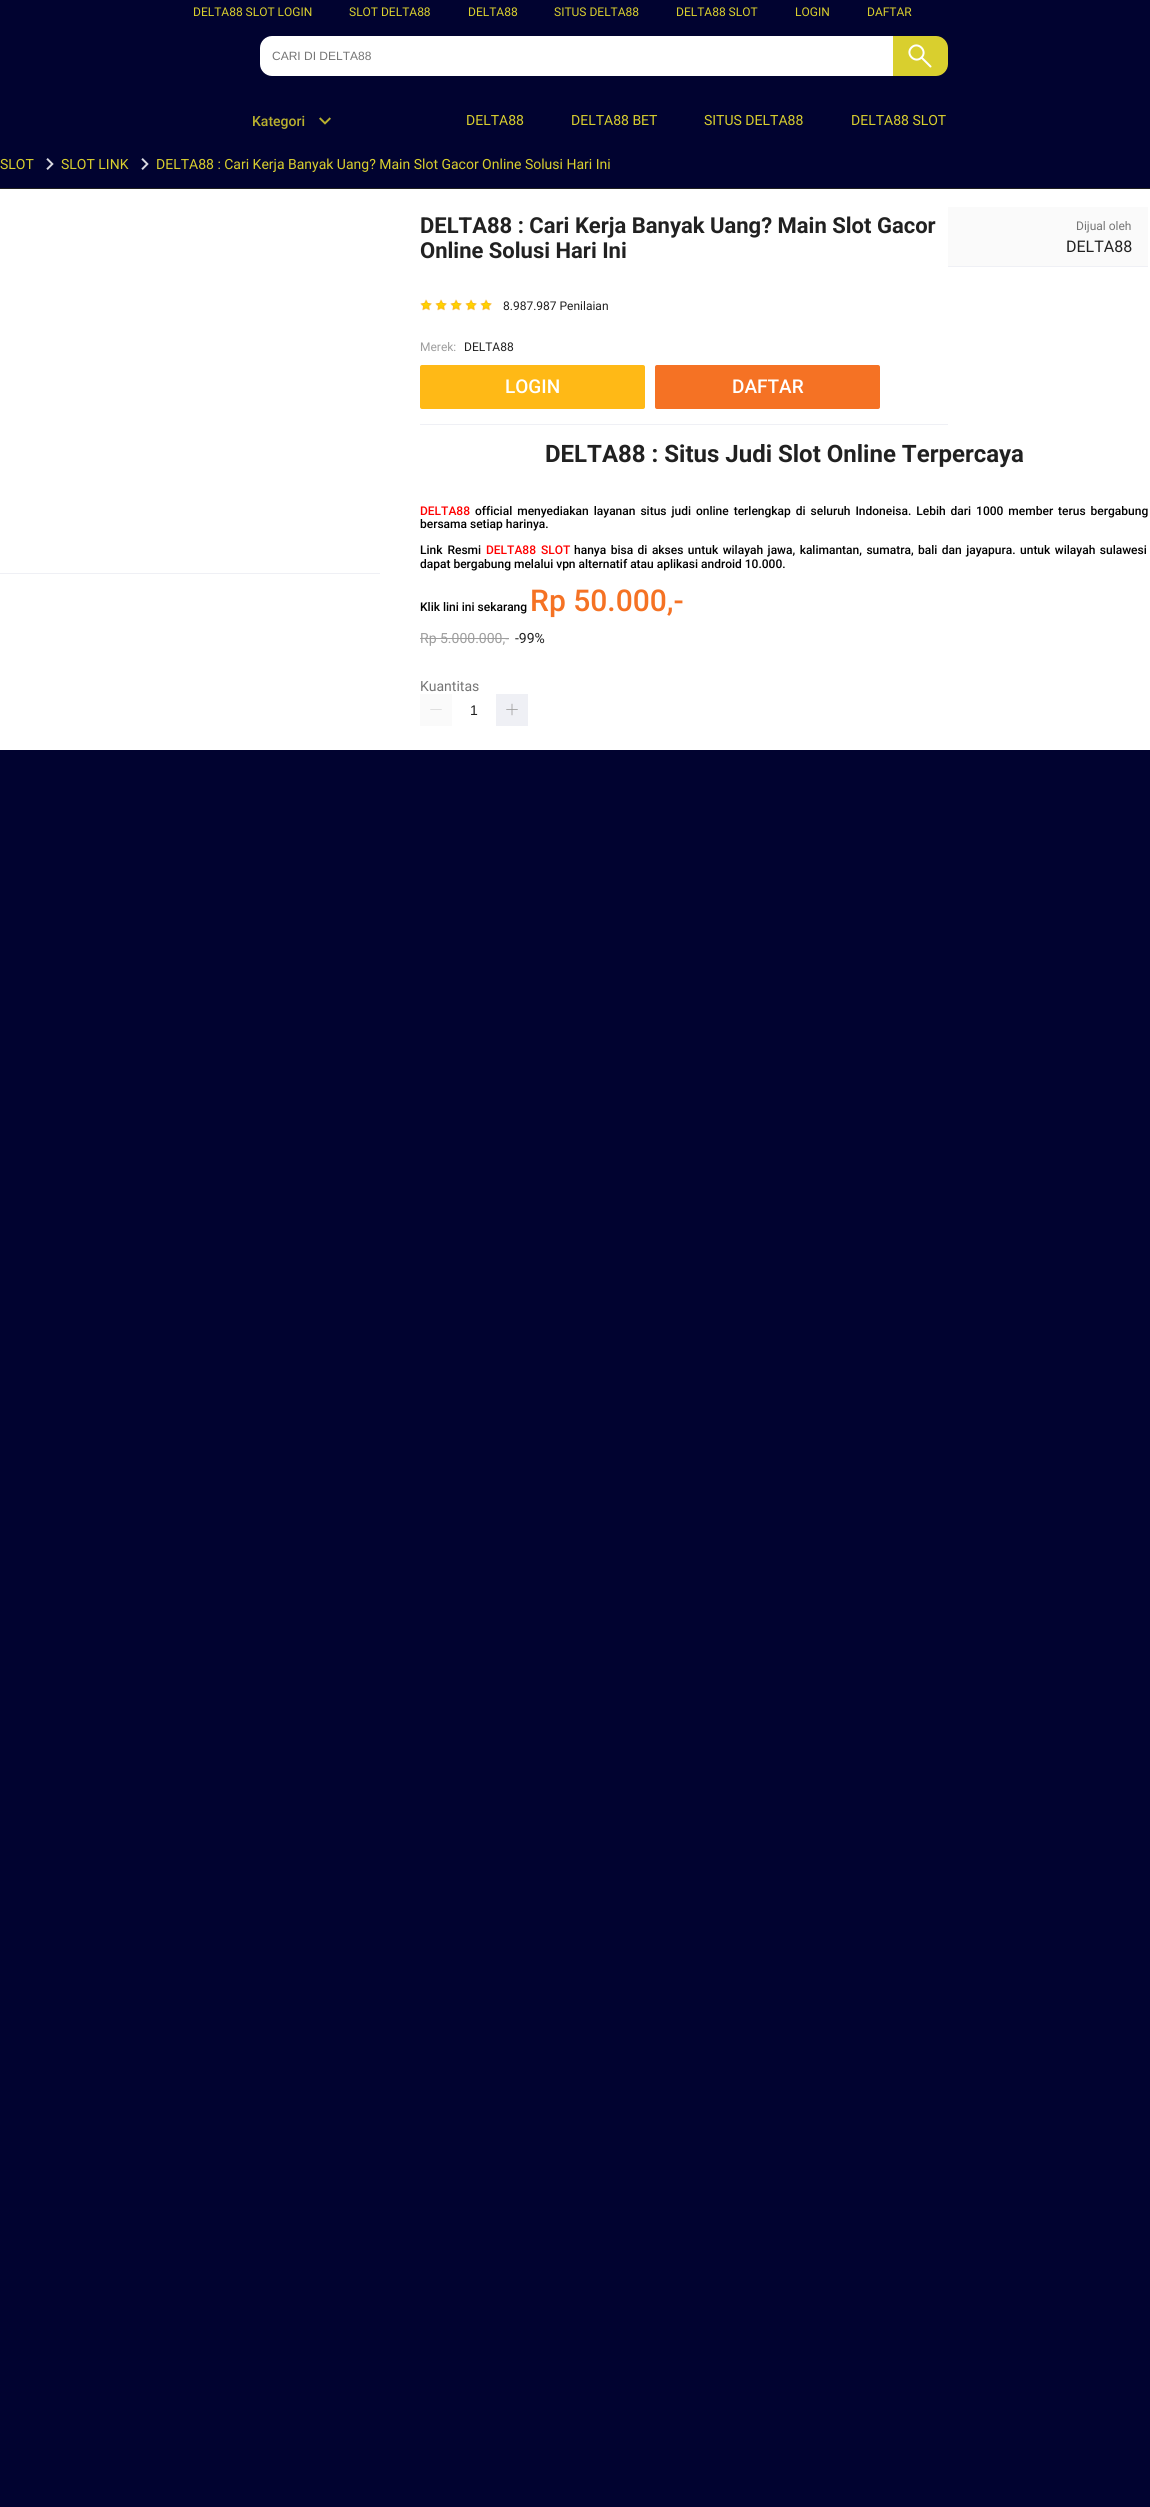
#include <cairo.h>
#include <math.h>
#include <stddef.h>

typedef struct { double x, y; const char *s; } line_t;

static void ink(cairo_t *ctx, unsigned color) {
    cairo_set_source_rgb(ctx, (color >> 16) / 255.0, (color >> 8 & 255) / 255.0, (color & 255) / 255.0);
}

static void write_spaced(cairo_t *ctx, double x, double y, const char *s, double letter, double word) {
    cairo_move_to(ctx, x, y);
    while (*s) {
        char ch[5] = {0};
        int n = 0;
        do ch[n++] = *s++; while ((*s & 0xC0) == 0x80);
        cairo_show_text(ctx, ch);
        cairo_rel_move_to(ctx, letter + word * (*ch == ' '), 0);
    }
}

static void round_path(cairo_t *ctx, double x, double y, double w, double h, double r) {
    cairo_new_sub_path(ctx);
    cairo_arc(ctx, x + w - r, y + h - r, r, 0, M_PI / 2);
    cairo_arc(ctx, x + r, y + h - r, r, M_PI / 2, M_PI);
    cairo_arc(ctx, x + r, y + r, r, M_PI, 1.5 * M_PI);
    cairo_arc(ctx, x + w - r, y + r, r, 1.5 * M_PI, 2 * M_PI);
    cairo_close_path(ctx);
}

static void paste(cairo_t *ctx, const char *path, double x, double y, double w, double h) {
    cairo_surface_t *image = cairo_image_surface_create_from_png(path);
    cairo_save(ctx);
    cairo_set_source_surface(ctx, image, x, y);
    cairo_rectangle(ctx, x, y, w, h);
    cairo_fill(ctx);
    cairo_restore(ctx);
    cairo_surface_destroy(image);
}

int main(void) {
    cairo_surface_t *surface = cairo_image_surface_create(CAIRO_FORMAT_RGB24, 1150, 2507);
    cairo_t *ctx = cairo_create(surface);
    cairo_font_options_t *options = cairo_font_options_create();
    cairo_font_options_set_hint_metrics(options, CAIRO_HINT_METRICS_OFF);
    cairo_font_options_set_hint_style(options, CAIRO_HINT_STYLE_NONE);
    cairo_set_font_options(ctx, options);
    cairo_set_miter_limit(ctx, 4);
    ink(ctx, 0x010330);
    cairo_paint(ctx);
    cairo_select_font_face(ctx, "Roboto", CAIRO_FONT_SLANT_NORMAL, CAIRO_FONT_WEIGHT_NORMAL);
    cairo_set_font_size(ctx, 12);
    ink(ctx, 0xD9CF2E);
    {
        static const line_t items[] = {
            {193, 16, "DELTA88 SLOT LOGIN"},
            {349, 16, "SLOT DELTA88"},
            {468, 16, "DELTA88"},
            {554, 16, "SITUS DELTA88"},
            {676, 16, "DELTA88 SLOT"},
            {795, 16, "LOGIN"},
            {867, 16, "DAFTAR"},
        };
        for (size_t i = 0; i < sizeof items / sizeof *items; i++) {
            cairo_move_to(ctx, items[i].x, items[i].y);
            cairo_show_text(ctx, items[i].s);
        }
    }
    ink(ctx, 0xFFFFFF);
    cairo_new_path(ctx);
    cairo_move_to(ctx, 272, 36);
    cairo_line_to(ctx, 893, 36);
    cairo_line_to(ctx, 893, 76);
    cairo_line_to(ctx, 272, 76);
    cairo_curve_to(ctx, 265.5, 76, 260, 70.5, 260, 64);
    cairo_line_to(ctx, 260, 48);
    cairo_curve_to(ctx, 260, 41.5, 265.5, 36, 272, 36);
    cairo_close_path(ctx);
    cairo_fill(ctx);
    cairo_select_font_face(ctx, "Liberation Sans", CAIRO_FONT_SLANT_NORMAL, CAIRO_FONT_WEIGHT_NORMAL);
    ink(ctx, 0x757575);
    cairo_move_to(ctx, 272, 60);
    cairo_show_text(ctx, "CARI DI DELTA88");
    ink(ctx, 0xD9CF2E);
    cairo_new_path(ctx);
    cairo_move_to(ctx, 893, 36);
    cairo_line_to(ctx, 936, 36);
    cairo_curve_to(ctx, 942.5, 36, 948, 41.5, 948, 48);
    cairo_line_to(ctx, 948, 64);
    cairo_curve_to(ctx, 948, 70.5, 942.5, 76, 936, 76);
    cairo_line_to(ctx, 893, 76);
    cairo_close_path(ctx);
    cairo_fill(ctx);
    cairo_new_path(ctx);
    cairo_move_to(ctx, 921.5, 57.5);
    cairo_curve_to(ctx, 928, 51, 918, 41, 911.5, 47.5);
    cairo_curve_to(ctx, 905, 54, 915, 64, 921.5, 57.5);
    cairo_close_path(ctx);
    cairo_move_to(ctx, 922, 58);
    cairo_line_to(ctx, 930.5, 66.5);
    ink(ctx, 0xFFFFFF);
    cairo_set_line_cap(ctx, CAIRO_LINE_CAP_ROUND);
    cairo_set_line_join(ctx, CAIRO_LINE_JOIN_ROUND);
    cairo_stroke(ctx);
    cairo_select_font_face(ctx, "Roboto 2 Medium", CAIRO_FONT_SLANT_NORMAL, CAIRO_FONT_WEIGHT_NORMAL);
    cairo_set_font_size(ctx, 14);
    ink(ctx, 0xB9B02E);
    cairo_move_to(ctx, 252, 126);
    cairo_show_text(ctx, "Kategori");
    paste(ctx, "media/1.png", 319, 117, 12, 8);
    cairo_select_font_face(ctx, "Roboto", CAIRO_FONT_SLANT_NORMAL, CAIRO_FONT_WEIGHT_NORMAL);
    ink(ctx, 0xD9CF2E);
    {
        static const line_t items[] = {
            {466, 125, "DELTA88"},
            {571, 125, "DELTA88 BET"},
            {704, 125, "SITUS DELTA88"},
            {851, 125, "DELTA88 SLOT"},
        };
        for (size_t i = 0; i < sizeof items / sizeof *items; i++) {
            cairo_move_to(ctx, items[i].x, items[i].y);
            cairo_show_text(ctx, items[i].s);
        }
    }
    ink(ctx, 0x212121);
    cairo_rectangle(ctx, 0, 188, 1150, 1);
    cairo_fill(ctx);
    ink(ctx, 0xD9CF2E);
    cairo_move_to(ctx, 0, 169);
    cairo_show_text(ctx, "SLOT");
    paste(ctx, "media/2.png", 46, 158, 8, 12);
    cairo_move_to(ctx, 61, 169);
    cairo_show_text(ctx, "SLOT LINK");
    paste(ctx, "media/2.png", 141, 158, 8, 12);
    cairo_move_to(ctx, 156, 169);
    cairo_show_text(ctx, "DELTA88 : Cari Kerja Banyak Uang? Main Slot Gacor Online Solusi Hari Ini");
    ink(ctx, 0xFFFFFF);
    cairo_rectangle(ctx, 0, 189, 1150, 561);
    cairo_fill(ctx);
    ink(ctx, 0xEFF0F5);
    cairo_rectangle(ctx, 0, 573, 380, 1);
    cairo_fill(ctx);
    cairo_select_font_face(ctx, "Roboto", CAIRO_FONT_SLANT_NORMAL, CAIRO_FONT_WEIGHT_BOLD);
    cairo_set_font_size(ctx, 22);
    ink(ctx, 0x212121);
    cairo_move_to(ctx, 420, 233);
    cairo_show_text(ctx, "DELTA88 : Cari Kerja Banyak Uang? Main Slot Gacor");
    cairo_move_to(ctx, 420, 258);
    cairo_show_text(ctx, "Online Solusi Hari Ini");
    paste(ctx, "media/3.png", 420, 299, 12, 12);
    paste(ctx, "media/3.png", 435, 299, 12, 12);
    paste(ctx, "media/3.png", 450, 299, 12, 12);
    paste(ctx, "media/3.png", 465, 299, 12, 12);
    paste(ctx, "media/3.png", 480, 299, 12, 12);
    cairo_select_font_face(ctx, "Roboto 2", CAIRO_FONT_SLANT_NORMAL, CAIRO_FONT_WEIGHT_NORMAL);
    cairo_set_font_size(ctx, 12);
    cairo_move_to(ctx, 503, 310);
    cairo_show_text(ctx, "8.987.987 Penilaian");
    ink(ctx, 0xEFF0F5);
    cairo_rectangle(ctx, 420, 424, 528, 1);
    cairo_fill(ctx);
    ink(ctx, 0x9E9E9E);
    cairo_move_to(ctx, 420, 351);
    cairo_show_text(ctx, "Merek:");
    ink(ctx, 0x212121);
    cairo_move_to(ctx, 464, 351);
    cairo_show_text(ctx, "DELTA88");
    ink(ctx, 0xFFB916);
    round_path(ctx, 420, 365, 225, 44, 2);
    cairo_fill(ctx);
    cairo_select_font_face(ctx, "Roboto Medium", CAIRO_FONT_SLANT_NORMAL, CAIRO_FONT_WEIGHT_NORMAL);
    cairo_set_font_size(ctx, 19);
    ink(ctx, 0xFFFFFF);
    cairo_move_to(ctx, 505, 393);
    cairo_show_text(ctx, "LOGIN");
    ink(ctx, 0xF57224);
    round_path(ctx, 655, 365, 225, 44, 2);
    cairo_fill(ctx);
    ink(ctx, 0xFFFFFF);
    cairo_move_to(ctx, 732, 393);
    cairo_show_text(ctx, "DAFTAR");
    ink(ctx, 0xFAFAFA);
    cairo_rectangle(ctx, 948, 207, 200, 59);
    cairo_fill(ctx);
    cairo_select_font_face(ctx, "Roboto 2", CAIRO_FONT_SLANT_NORMAL, CAIRO_FONT_WEIGHT_NORMAL);
    cairo_set_font_size(ctx, 12);
    ink(ctx, 0x757575);
    cairo_move_to(ctx, 1076, 230);
    cairo_show_text(ctx, "Dijual oleh");
    cairo_set_font_size(ctx, 16);
    ink(ctx, 0x212121);
    cairo_move_to(ctx, 1066, 252);
    cairo_show_text(ctx, "DELTA88");
    ink(ctx, 0xEFF0F5);
    cairo_rectangle(ctx, 948, 266, 200, 1);
    cairo_fill(ctx);
    cairo_select_font_face(ctx, "Roboto", CAIRO_FONT_SLANT_NORMAL, CAIRO_FONT_WEIGHT_BOLD);
    cairo_set_font_size(ctx, 24);
    ink(ctx, 0x212121);
    cairo_move_to(ctx, 545, 462);
    cairo_show_text(ctx, "DELTA88 : Situs Judi Slot Online Terpercaya");
    cairo_select_font_face(ctx, "Roboto Medium", CAIRO_FONT_SLANT_NORMAL, CAIRO_FONT_WEIGHT_NORMAL);
    cairo_set_font_size(ctx, 12);
    ink(ctx, 0xFF0000);
    cairo_move_to(ctx, 420, 515);
    cairo_show_text(ctx, "DELTA88");
    ink(ctx, 0x000000);
    write_spaced(ctx, 475, 515, "official menyediakan layanan situs judi online terlengkap di seluruh Indoneisa. Lebih dari 1000 member terus bergabung", 0, 2);
    cairo_move_to(ctx, 420, 528);
    cairo_show_text(ctx, "bersama setiap harinya.");
    write_spaced(ctx, 420, 554, "Link Resmi", 0, 2);
    ink(ctx, 0xFF0000);
    write_spaced(ctx, 486, 554, "DELTA88 SLOT", 0, 2);
    ink(ctx, 0x000000);
    write_spaced(ctx, 574, 554, "hanya bisa di akses untuk wilayah jawa, kalimantan, sumatra, bali dan jayapura. untuk wilayah sulawesi", 0, 1.5);
    cairo_move_to(ctx, 420, 568);
    cairo_show_text(ctx, "dapat bergabung melalui vpn alternatif atau aplikasi android 10.000.");
    cairo_move_to(ctx, 420, 611);
    cairo_show_text(ctx, "Klik lini ini sekarang");
    cairo_set_font_size(ctx, 30);
    ink(ctx, 0xF57224);
    cairo_move_to(ctx, 530, 611);
    cairo_show_text(ctx, "Rp 50.000,-");
    cairo_select_font_face(ctx, "Roboto 2", CAIRO_FONT_SLANT_NORMAL, CAIRO_FONT_WEIGHT_NORMAL);
    cairo_set_font_size(ctx, 14);
    ink(ctx, 0x9E9E9E);
    cairo_move_to(ctx, 420, 643);
    cairo_show_text(ctx, "Rp 5.000.000,-");
    cairo_rectangle(ctx, 420, 638, 89, 1);
    cairo_fill(ctx);
    ink(ctx, 0x212121);
    cairo_move_to(ctx, 515, 643);
    cairo_show_text(ctx, "-99%");
    ink(ctx, 0x757575);
    cairo_move_to(ctx, 420, 691);
    cairo_show_text(ctx, "Kuantitas");
    ink(ctx, 0xFAFAFA);
    cairo_rectangle(ctx, 420, 694, 32, 32);
    cairo_fill(ctx);
    paste(ctx, "media/4.png", 430, 709, 12, 1);
    ink(ctx, 0xEFF0F5);
    cairo_rectangle(ctx, 496, 694, 32, 32);
    cairo_fill(ctx);
    paste(ctx, "media/5.png", 506, 703, 12, 13);
    cairo_select_font_face(ctx, "Liberation Sans", CAIRO_FONT_SLANT_NORMAL, CAIRO_FONT_WEIGHT_NORMAL);
    ink(ctx, 0x212121);
    cairo_move_to(ctx, 470, 715);
    cairo_show_text(ctx, "1");
    cairo_surface_write_to_png(surface, "image.png");
    cairo_font_options_destroy(options);
    cairo_destroy(ctx);
    cairo_surface_destroy(surface);
    return 0;
}
